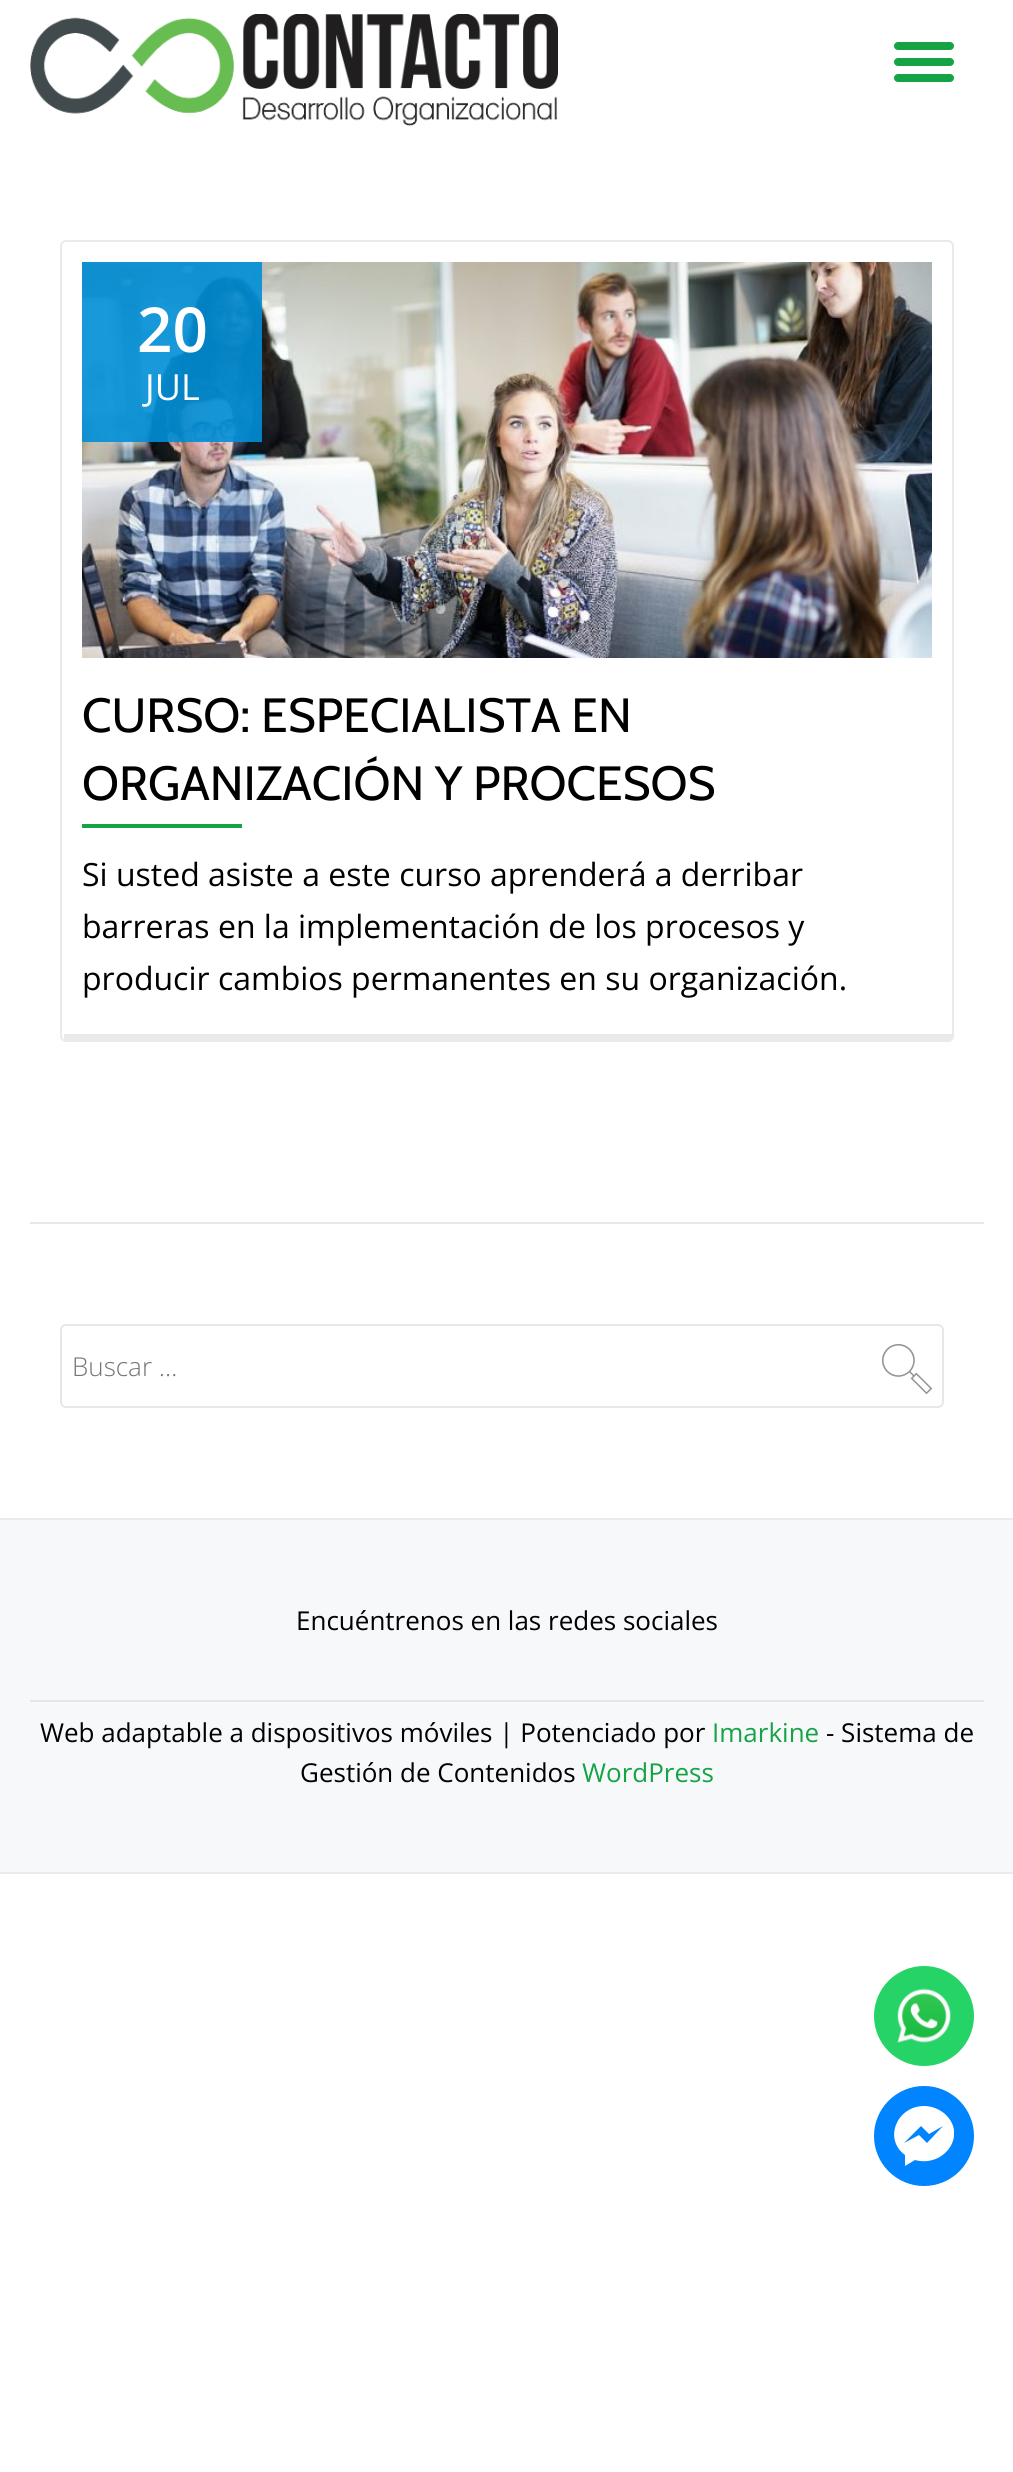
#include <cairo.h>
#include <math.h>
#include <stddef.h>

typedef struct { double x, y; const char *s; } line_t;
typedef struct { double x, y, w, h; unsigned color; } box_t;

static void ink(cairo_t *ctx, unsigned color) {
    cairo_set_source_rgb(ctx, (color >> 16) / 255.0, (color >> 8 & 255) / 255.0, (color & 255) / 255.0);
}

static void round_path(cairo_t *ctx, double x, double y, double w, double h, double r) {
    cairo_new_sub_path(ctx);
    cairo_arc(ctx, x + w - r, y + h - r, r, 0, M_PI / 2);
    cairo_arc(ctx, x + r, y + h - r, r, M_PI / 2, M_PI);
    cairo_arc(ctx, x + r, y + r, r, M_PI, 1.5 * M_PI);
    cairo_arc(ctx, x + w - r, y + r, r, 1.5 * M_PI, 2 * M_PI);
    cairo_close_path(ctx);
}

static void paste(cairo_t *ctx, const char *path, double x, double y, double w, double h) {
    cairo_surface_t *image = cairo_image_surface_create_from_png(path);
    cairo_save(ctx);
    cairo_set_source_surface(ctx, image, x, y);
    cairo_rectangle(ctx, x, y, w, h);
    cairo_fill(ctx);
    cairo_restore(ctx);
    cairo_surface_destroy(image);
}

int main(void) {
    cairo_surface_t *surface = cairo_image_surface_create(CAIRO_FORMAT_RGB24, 1013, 2472);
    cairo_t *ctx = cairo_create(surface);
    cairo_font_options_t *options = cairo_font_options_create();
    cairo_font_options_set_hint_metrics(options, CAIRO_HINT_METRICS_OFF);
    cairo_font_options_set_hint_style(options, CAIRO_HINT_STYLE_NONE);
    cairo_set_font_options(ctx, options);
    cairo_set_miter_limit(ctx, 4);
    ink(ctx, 0xFFFFFF);
    cairo_paint(ctx);
    paste(ctx, "media/1.png", 30, 14, 528, 112);
    ink(ctx, 0x15A346);
    round_path(ctx, 894, 42, 60, 8, 4);
    cairo_fill(ctx);
    round_path(ctx, 894, 58, 60, 8, 4);
    cairo_fill(ctx);
    round_path(ctx, 894, 74, 60, 8, 4);
    cairo_fill(ctx);
    round_path(ctx, 61, 241, 892, 800, 5);
    ink(ctx, 0xEAEAEA);
    cairo_stroke(ctx);
    cairo_rectangle(ctx, 64, 1034, 888, 6);
    cairo_fill(ctx);
    paste(ctx, "media/2.png", 82, 262, 850, 396);
    cairo_set_source_rgba(ctx, 0, 0.557, 0.839, 0.9);
    cairo_rectangle(ctx, 82, 262, 180, 180);
    cairo_fill(ctx);
    cairo_select_font_face(ctx, "Open Sans SemiBold", CAIRO_FONT_SLANT_NORMAL, CAIRO_FONT_WEIGHT_NORMAL);
    cairo_set_font_size(ctx, 62);
    ink(ctx, 0xFFFFFF);
    cairo_move_to(ctx, 137, 352);
    cairo_show_text(ctx, "20");
    cairo_select_font_face(ctx, "Open Sans", CAIRO_FONT_SLANT_NORMAL, CAIRO_FONT_WEIGHT_NORMAL);
    cairo_set_font_size(ctx, 36);
    cairo_move_to(ctx, 145, 400);
    cairo_show_text(ctx, "JUL");
    cairo_select_font_face(ctx, "Cabin", CAIRO_FONT_SLANT_NORMAL, CAIRO_FONT_WEIGHT_NORMAL);
    cairo_set_font_size(ctx, 48);
    ink(ctx, 0x000000);
    cairo_move_to(ctx, 82, 732);
    cairo_show_text(ctx, "CURSO: ESPECIALISTA EN");
    cairo_move_to(ctx, 82, 800);
    cairo_show_text(ctx, "ORGANIZACIÓN Y PROCESOS");
    ink(ctx, 0x15A346);
    cairo_rectangle(ctx, 82, 824, 160, 4);
    cairo_fill(ctx);
    cairo_select_font_face(ctx, "Open Sans", CAIRO_FONT_SLANT_NORMAL, CAIRO_FONT_WEIGHT_NORMAL);
    cairo_set_font_size(ctx, 32);
    ink(ctx, 0x000000);
    {
        static const line_t items[] = {
            {82, 886, "Si usted asiste a este curso aprenderá a derribar"},
            {82, 938, "barreras en la implementación de los procesos y"},
            {82, 990, "producir cambios permanentes en su organización."},
        };
        for (size_t i = 0; i < sizeof items / sizeof *items; i++) {
            cairo_move_to(ctx, items[i].x, items[i].y);
            cairo_show_text(ctx, items[i].s);
        }
    }
    ink(ctx, 0xE7E7E7);
    cairo_rectangle(ctx, 30, 1222, 954, 2);
    cairo_fill(ctx);
    round_path(ctx, 61, 1325, 882, 82, 5);
    cairo_stroke(ctx);
    cairo_select_font_face(ctx, "Open Sans Light", CAIRO_FONT_SLANT_NORMAL, CAIRO_FONT_WEIGHT_NORMAL);
    cairo_set_font_size(ctx, 26);
    ink(ctx, 0x757575);
    cairo_move_to(ctx, 72, 1376);
    cairo_show_text(ctx, "Buscar …");
    paste(ctx, "media/3.png", 882, 1344, 51, 51);
    {
        static const box_t items[] = {
            {0, 1520, 1013, 352, 0xF7F8FA},
            {0, 1518, 1013, 2, 0xEAEBEC},
            {0, 1872, 1013, 2, 0xEAEBEC},
        };
        for (size_t i = 0; i < sizeof items / sizeof *items; i++) {
            ink(ctx, items[i].color);
            cairo_rectangle(ctx, items[i].x, items[i].y, items[i].w, items[i].h);
            cairo_fill(ctx);
        }
    }
    cairo_select_font_face(ctx, "Open Sans", CAIRO_FONT_SLANT_NORMAL, CAIRO_FONT_WEIGHT_NORMAL);
    ink(ctx, 0x000000);
    cairo_move_to(ctx, 296, 1630);
    cairo_show_text(ctx, "Encuéntrenos en las redes sociales");
    ink(ctx, 0xE4E7E7);
    cairo_rectangle(ctx, 30, 1700, 954, 2);
    cairo_fill(ctx);
    ink(ctx, 0x000000);
    cairo_move_to(ctx, 40, 1742);
    cairo_show_text(ctx, "Web adaptable a dispositivos móviles | Potenciado por");
    ink(ctx, 0x15A346);
    cairo_move_to(ctx, 712, 1742);
    cairo_show_text(ctx, "Imarkine");
    ink(ctx, 0x000000);
    cairo_move_to(ctx, 826, 1742);
    cairo_show_text(ctx, "- Sistema de");
    cairo_move_to(ctx, 300, 1782);
    cairo_show_text(ctx, "Gestión de Contenidos");
    ink(ctx, 0x15A346);
    cairo_move_to(ctx, 582, 1782);
    cairo_show_text(ctx, "WordPress");
    ink(ctx, 0x25D366);
    cairo_new_path(ctx);
    cairo_arc(ctx, 924, 2016, 50, 0, 2 * M_PI);
    cairo_fill(ctx);
    paste(ctx, "media/4.png", 897, 1988, 54, 55);
    ink(ctx, 0x0084FF);
    cairo_arc(ctx, 924, 2136, 50, 0, 2 * M_PI);
    cairo_fill(ctx);
    cairo_save(ctx);
    cairo_rectangle(ctx, 894, 2106, 60, 60);
    cairo_clip(ctx);
    ink(ctx, 0xFFFFFF);
    cairo_new_path(ctx);
    cairo_move_to(ctx, 924, 2106);
    cairo_curve_to(ctx, 897, 2106, 883, 2139, 905, 2155);
    cairo_line_to(ctx, 905, 2166);
    cairo_line_to(ctx, 915, 2160);
    cairo_curve_to(ctx, 944, 2168, 968, 2135, 945, 2114);
    cairo_curve_to(ctx, 939, 2109, 932, 2106, 924, 2106);
    cairo_close_path(ctx);
    cairo_move_to(ctx, 927, 2143);
    cairo_line_to(ctx, 919, 2135);
    cairo_line_to(ctx, 904, 2143);
    cairo_line_to(ctx, 921, 2126);
    cairo_line_to(ctx, 929, 2134);
    cairo_line_to(ctx, 943, 2126);
    cairo_close_path(ctx);
    cairo_fill(ctx);
    cairo_restore(ctx);
    cairo_surface_write_to_png(surface, "image.png");
    cairo_font_options_destroy(options);
    cairo_destroy(ctx);
    cairo_surface_destroy(surface);
    return 0;
}
